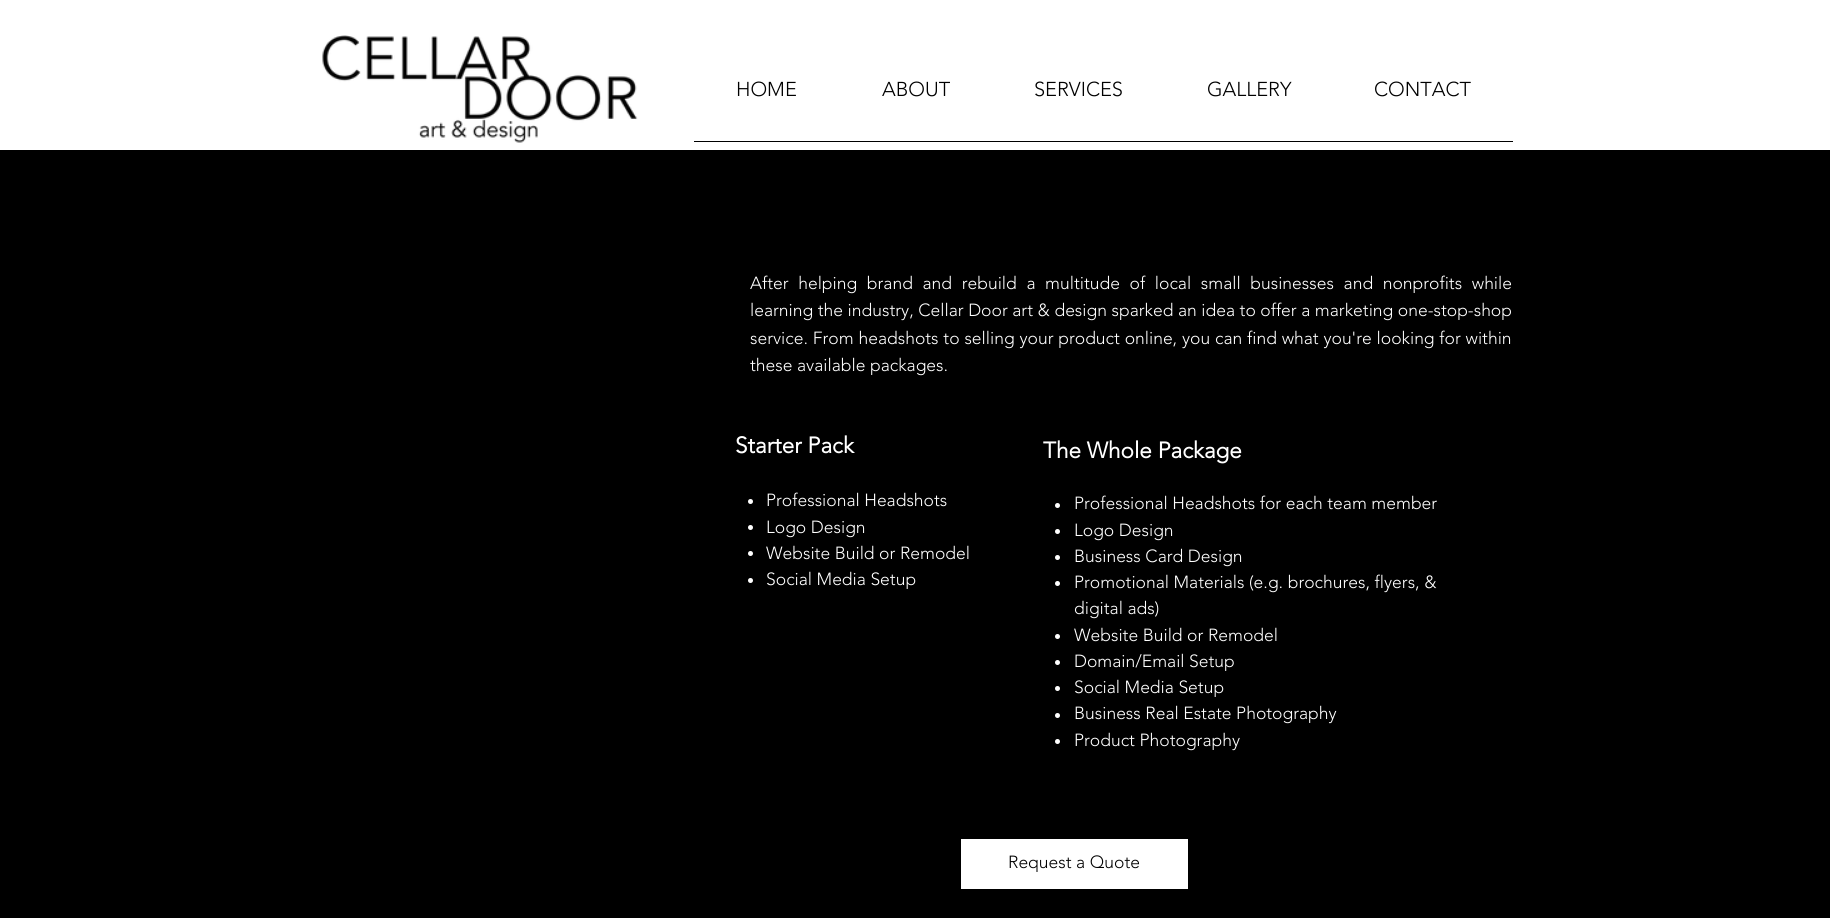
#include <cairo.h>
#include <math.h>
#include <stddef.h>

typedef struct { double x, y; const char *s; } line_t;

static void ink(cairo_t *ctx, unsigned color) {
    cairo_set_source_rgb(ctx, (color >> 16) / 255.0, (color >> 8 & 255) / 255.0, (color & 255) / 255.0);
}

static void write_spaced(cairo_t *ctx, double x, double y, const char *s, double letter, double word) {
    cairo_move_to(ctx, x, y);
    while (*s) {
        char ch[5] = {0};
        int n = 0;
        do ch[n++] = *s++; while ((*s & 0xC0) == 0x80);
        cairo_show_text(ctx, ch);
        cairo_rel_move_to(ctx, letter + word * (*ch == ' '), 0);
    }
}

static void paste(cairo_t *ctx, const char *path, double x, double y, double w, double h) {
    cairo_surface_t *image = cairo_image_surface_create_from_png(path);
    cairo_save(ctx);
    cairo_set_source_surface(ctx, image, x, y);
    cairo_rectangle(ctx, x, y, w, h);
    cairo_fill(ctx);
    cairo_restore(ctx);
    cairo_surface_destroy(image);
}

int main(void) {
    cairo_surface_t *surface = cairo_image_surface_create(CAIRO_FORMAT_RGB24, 1830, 918);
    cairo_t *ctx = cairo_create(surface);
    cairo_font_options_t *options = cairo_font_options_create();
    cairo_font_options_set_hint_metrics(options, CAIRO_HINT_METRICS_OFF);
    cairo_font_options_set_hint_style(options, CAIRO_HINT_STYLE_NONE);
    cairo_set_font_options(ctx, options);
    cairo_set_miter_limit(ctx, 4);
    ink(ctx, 0x000000);
    cairo_paint(ctx);
    ink(ctx, 0xFFFFFF);
    cairo_rectangle(ctx, 0, 0, 1830, 150);
    cairo_fill(ctx);
    paste(ctx, "media/1.png", 322, 35, 316, 108);
    cairo_select_font_face(ctx, "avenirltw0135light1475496 Light", CAIRO_FONT_SLANT_NORMAL, CAIRO_FONT_WEIGHT_NORMAL);
    cairo_set_font_size(ctx, 20);
    ink(ctx, 0x000000);
    {
        static const line_t items[] = {
            {736, 96, "HOME"},
            {882, 96, "ABOUT"},
            {1034, 96, "SERVICES"},
            {1207, 96, "GALLERY"},
            {1374, 96, "CONTACT"},
        };
        for (size_t i = 0; i < sizeof items / sizeof *items; i++) {
            cairo_move_to(ctx, items[i].x, items[i].y);
            cairo_show_text(ctx, items[i].s);
        }
    }
    cairo_rectangle(ctx, 694, 141, 819, 1);
    cairo_fill(ctx);
    cairo_set_font_size(ctx, 17.5);
    ink(ctx, 0xFFFFFF);
    write_spaced(ctx, 750, 289, "After helping brand and rebuild a multitude of local small businesses and nonprofits while", 0, 5.1);
    cairo_move_to(ctx, 750, 316);
    cairo_show_text(ctx, "learning the industry, Cellar Door art & design sparked an idea to offer a marketing one-stop-shop");
    write_spaced(ctx, 750, 344, "service. From headshots to selling your product online, you can find what you're looking for within", 0, 0.25);
    cairo_move_to(ctx, 750, 371);
    cairo_show_text(ctx, "these available packages.");
    cairo_select_font_face(ctx, "avenirltw0135light1475496", CAIRO_FONT_SLANT_NORMAL, CAIRO_FONT_WEIGHT_BOLD);
    cairo_set_font_size(ctx, 22.5);
    cairo_move_to(ctx, 735, 453);
    cairo_show_text(ctx, "Starter Pack");
    cairo_new_path(ctx);
    cairo_arc(ctx, 750.5, 501.5, 2.5, 0, 2 * M_PI);
    cairo_fill(ctx);
    cairo_select_font_face(ctx, "avenirltw0135light1475496 Light", CAIRO_FONT_SLANT_NORMAL, CAIRO_FONT_WEIGHT_NORMAL);
    cairo_set_font_size(ctx, 17.5);
    cairo_move_to(ctx, 766, 506);
    cairo_show_text(ctx, "Professional Headshots");
    cairo_new_path(ctx);
    cairo_arc(ctx, 750.5, 527.5, 2.5, 0, 2 * M_PI);
    cairo_fill(ctx);
    cairo_move_to(ctx, 766, 533);
    cairo_show_text(ctx, "Logo Design");
    cairo_new_path(ctx);
    cairo_arc(ctx, 750.5, 553.5, 2.5, 0, 2 * M_PI);
    cairo_fill(ctx);
    cairo_move_to(ctx, 766, 559);
    cairo_show_text(ctx, "Website Build or Remodel");
    cairo_new_path(ctx);
    cairo_arc(ctx, 750.5, 580.5, 2.5, 0, 2 * M_PI);
    cairo_fill(ctx);
    cairo_move_to(ctx, 766, 585);
    cairo_show_text(ctx, "Social Media Setup");
    cairo_select_font_face(ctx, "avenirltw0135light1475496", CAIRO_FONT_SLANT_NORMAL, CAIRO_FONT_WEIGHT_BOLD);
    cairo_set_font_size(ctx, 22.5);
    cairo_move_to(ctx, 1043, 458);
    cairo_show_text(ctx, "The Whole Package");
    cairo_new_path(ctx);
    cairo_arc(ctx, 1057.5, 505.5, 2.5, 0, 2 * M_PI);
    cairo_fill(ctx);
    cairo_select_font_face(ctx, "avenirltw0135light1475496 Light", CAIRO_FONT_SLANT_NORMAL, CAIRO_FONT_WEIGHT_NORMAL);
    cairo_set_font_size(ctx, 17.5);
    cairo_move_to(ctx, 1074, 509);
    cairo_show_text(ctx, "Professional Headshots for each team member");
    cairo_new_path(ctx);
    cairo_arc(ctx, 1057.5, 531.5, 2.5, 0, 2 * M_PI);
    cairo_fill(ctx);
    cairo_move_to(ctx, 1074, 536);
    cairo_show_text(ctx, "Logo Design");
    cairo_new_path(ctx);
    cairo_arc(ctx, 1057.5, 557.5, 2.5, 0, 2 * M_PI);
    cairo_fill(ctx);
    cairo_move_to(ctx, 1074, 562);
    cairo_show_text(ctx, "Business Card Design");
    cairo_new_path(ctx);
    cairo_arc(ctx, 1057.5, 583.5, 2.5, 0, 2 * M_PI);
    cairo_fill(ctx);
    cairo_move_to(ctx, 1074, 588);
    cairo_show_text(ctx, "Promotional Materials (e.g. brochures, flyers, &");
    cairo_move_to(ctx, 1074, 614);
    cairo_show_text(ctx, "digital ads)");
    cairo_new_path(ctx);
    cairo_arc(ctx, 1057.5, 636.5, 2.5, 0, 2 * M_PI);
    cairo_fill(ctx);
    cairo_move_to(ctx, 1074, 641);
    cairo_show_text(ctx, "Website Build or Remodel");
    cairo_new_path(ctx);
    cairo_arc(ctx, 1057.5, 662.5, 2.5, 0, 2 * M_PI);
    cairo_fill(ctx);
    cairo_move_to(ctx, 1074, 667);
    cairo_show_text(ctx, "Domain/Email Setup");
    cairo_new_path(ctx);
    cairo_arc(ctx, 1057.5, 688.5, 2.5, 0, 2 * M_PI);
    cairo_fill(ctx);
    cairo_move_to(ctx, 1074, 693);
    cairo_show_text(ctx, "Social Media Setup");
    cairo_new_path(ctx);
    cairo_arc(ctx, 1057.5, 715.5, 2.5, 0, 2 * M_PI);
    cairo_fill(ctx);
    cairo_move_to(ctx, 1074, 719);
    cairo_show_text(ctx, "Business Real Estate Photography");
    cairo_new_path(ctx);
    cairo_arc(ctx, 1057.5, 741.5, 2.5, 0, 2 * M_PI);
    cairo_fill(ctx);
    cairo_move_to(ctx, 1074, 746);
    cairo_show_text(ctx, "Product Photography");
    cairo_rectangle(ctx, 961, 839, 227, 50);
    cairo_fill(ctx);
    ink(ctx, 0x000000);
    cairo_move_to(ctx, 1008, 868);
    cairo_show_text(ctx, "Request a Quote");
    cairo_surface_write_to_png(surface, "image.png");
    cairo_font_options_destroy(options);
    cairo_destroy(ctx);
    cairo_surface_destroy(surface);
    return 0;
}
